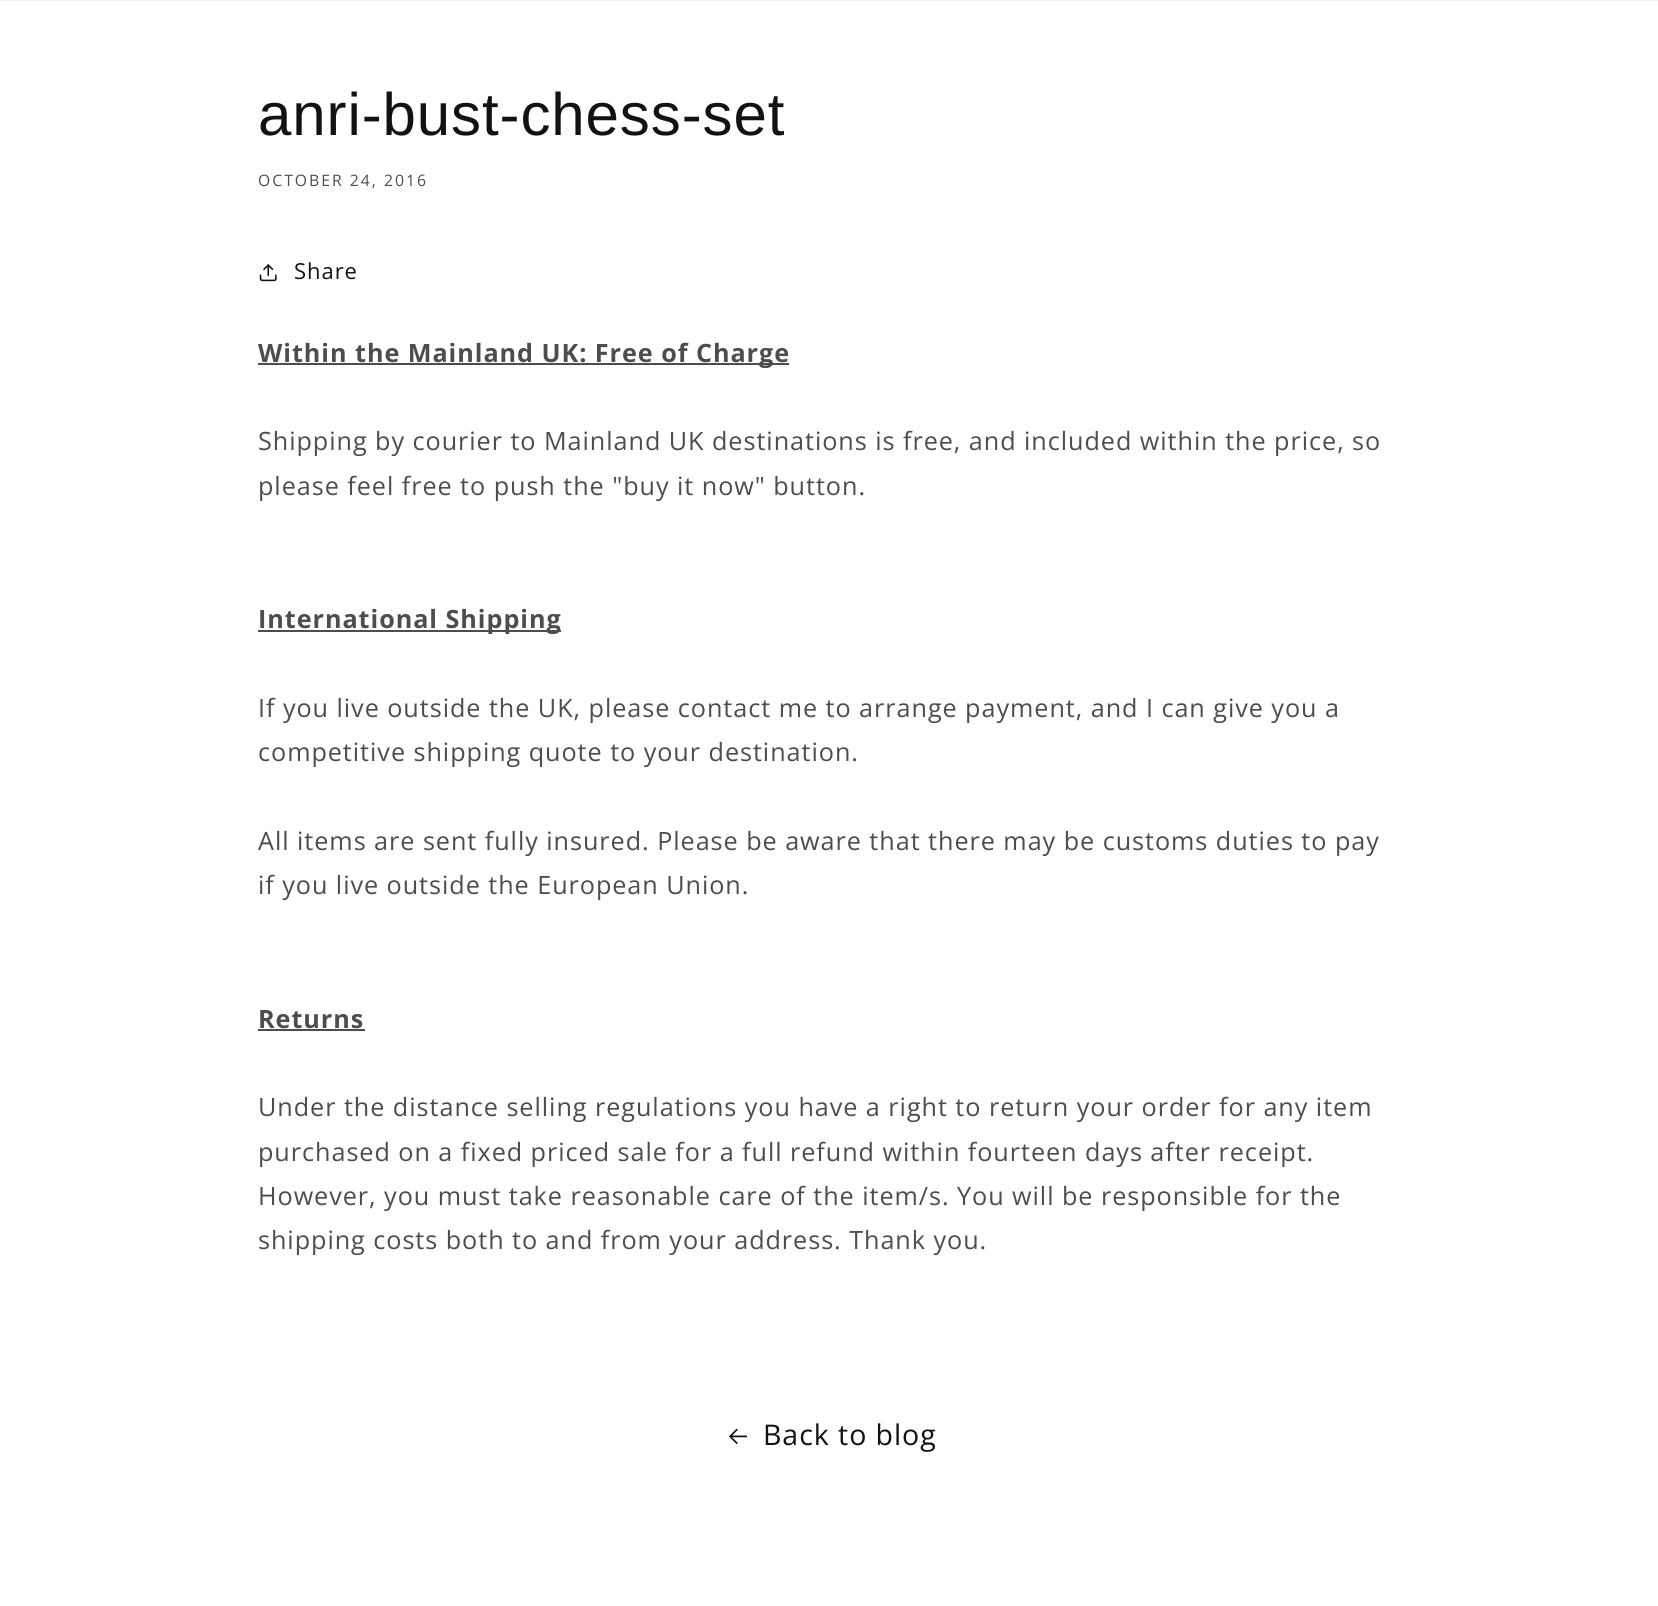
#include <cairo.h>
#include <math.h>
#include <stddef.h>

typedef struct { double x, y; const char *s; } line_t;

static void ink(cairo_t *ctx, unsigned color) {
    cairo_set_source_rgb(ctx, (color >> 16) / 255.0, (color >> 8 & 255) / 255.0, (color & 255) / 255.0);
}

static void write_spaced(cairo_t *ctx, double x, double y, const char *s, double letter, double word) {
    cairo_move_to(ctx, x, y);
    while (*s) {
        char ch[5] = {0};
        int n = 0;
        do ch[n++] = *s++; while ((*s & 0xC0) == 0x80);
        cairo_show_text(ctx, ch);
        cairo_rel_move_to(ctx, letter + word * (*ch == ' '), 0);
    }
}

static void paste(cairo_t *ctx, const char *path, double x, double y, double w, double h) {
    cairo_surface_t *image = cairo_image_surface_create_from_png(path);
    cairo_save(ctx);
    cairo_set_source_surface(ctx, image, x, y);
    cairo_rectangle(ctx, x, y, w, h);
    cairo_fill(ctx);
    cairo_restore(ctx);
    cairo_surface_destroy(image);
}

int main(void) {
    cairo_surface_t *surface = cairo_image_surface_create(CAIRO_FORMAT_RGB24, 1658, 1606);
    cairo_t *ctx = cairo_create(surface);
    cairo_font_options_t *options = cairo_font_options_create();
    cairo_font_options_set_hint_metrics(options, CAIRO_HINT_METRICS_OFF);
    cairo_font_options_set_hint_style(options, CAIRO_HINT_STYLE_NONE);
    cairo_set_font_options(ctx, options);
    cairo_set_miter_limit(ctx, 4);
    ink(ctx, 0xFFFFFF);
    cairo_paint(ctx);
    ink(ctx, 0xEBEEF7);
    cairo_rectangle(ctx, 0, 0, 1658, 1);
    cairo_fill(ctx);
    cairo_select_font_face(ctx, "Liberation Sans", CAIRO_FONT_SLANT_NORMAL, CAIRO_FONT_WEIGHT_NORMAL);
    cairo_set_font_size(ctx, 60);
    ink(ctx, 0x121212);
    write_spaced(ctx, 258, 135, "anri-bust-chess-set", 0.9, 0);
    cairo_select_font_face(ctx, "Open Sans", CAIRO_FONT_SLANT_NORMAL, CAIRO_FONT_WEIGHT_NORMAL);
    cairo_set_font_size(ctx, 15.75);
    ink(ctx, 0x4D4D4D);
    write_spaced(ctx, 258, 186, "OCTOBER 24, 2016", 2, 0);
    paste(ctx, "media/1.png", 259, 264, 18, 18);
    cairo_set_font_size(ctx, 22);
    ink(ctx, 0x121212);
    write_spaced(ctx, 294, 279, "Share", 0.95, 0);
    ink(ctx, 0x4D4D4D);
    cairo_rectangle(ctx, 258, 363, 531, 2);
    cairo_fill(ctx);
    cairo_select_font_face(ctx, "Open Sans", CAIRO_FONT_SLANT_NORMAL, CAIRO_FONT_WEIGHT_BOLD);
    cairo_set_font_size(ctx, 25.2);
    write_spaced(ctx, 258, 362, "Within the Mainland UK: Free of Charge", 0.95, 0);
    cairo_select_font_face(ctx, "Open Sans", CAIRO_FONT_SLANT_NORMAL, CAIRO_FONT_WEIGHT_NORMAL);
    write_spaced(ctx, 258, 450, "Shipping by courier to Mainland UK destinations is free, and included within the price, so", 0.95, 0);
    write_spaced(ctx, 258, 495, "please feel free to push the \"buy it now\" button.", 0.95, 0);
    cairo_rectangle(ctx, 258, 630, 303, 2);
    cairo_fill(ctx);
    cairo_select_font_face(ctx, "Open Sans", CAIRO_FONT_SLANT_NORMAL, CAIRO_FONT_WEIGHT_BOLD);
    write_spaced(ctx, 258, 628, "International Shipping", 0.95, 0);
    cairo_select_font_face(ctx, "Open Sans", CAIRO_FONT_SLANT_NORMAL, CAIRO_FONT_WEIGHT_NORMAL);
    {
        static const line_t items[] = {
            {258, 717, "If you live outside the UK, please contact me to arrange payment, and I can give you a"},
            {258, 761, "competitive shipping quote to your destination."},
            {258, 850, "All items are sent fully insured. Please be aware that there may be customs duties to pay"},
            {258, 894, "if you live outside the European Union."},
        };
        for (size_t i = 0; i < sizeof items / sizeof *items; i++) {
            write_spaced(ctx, items[i].x, items[i].y, items[i].s, 0.95, 0);
        }
    }
    cairo_select_font_face(ctx, "Open Sans", CAIRO_FONT_SLANT_NORMAL, CAIRO_FONT_WEIGHT_BOLD);
    write_spaced(ctx, 258, 1028, "Returns", 0.95, 0);
    cairo_rectangle(ctx, 258, 1029, 107, 2);
    cairo_fill(ctx);
    cairo_select_font_face(ctx, "Open Sans", CAIRO_FONT_SLANT_NORMAL, CAIRO_FONT_WEIGHT_NORMAL);
    {
        static const line_t items[] = {
            {258, 1116, "Under the distance selling regulations you have a right to return your order for any item"},
            {258, 1161, "purchased on a fixed priced sale for a full refund within fourteen days after receipt."},
            {258, 1205, "However, you must take reasonable care of the item/s. You will be responsible for the"},
            {258, 1249, "shipping costs both to and from your address. Thank you."},
        };
        for (size_t i = 0; i < sizeof items / sizeof *items; i++) {
            write_spaced(ctx, items[i].x, items[i].y, items[i].s, 0.95, 0);
        }
    }
    paste(ctx, "media/2.png", 729, 1428, 18, 16);
    cairo_set_font_size(ctx, 28.5);
    ink(ctx, 0x121212);
    write_spaced(ctx, 763, 1445, "Back to blog", 0.95, 0);
    cairo_surface_write_to_png(surface, "image.png");
    cairo_font_options_destroy(options);
    cairo_destroy(ctx);
    cairo_surface_destroy(surface);
    return 0;
}
